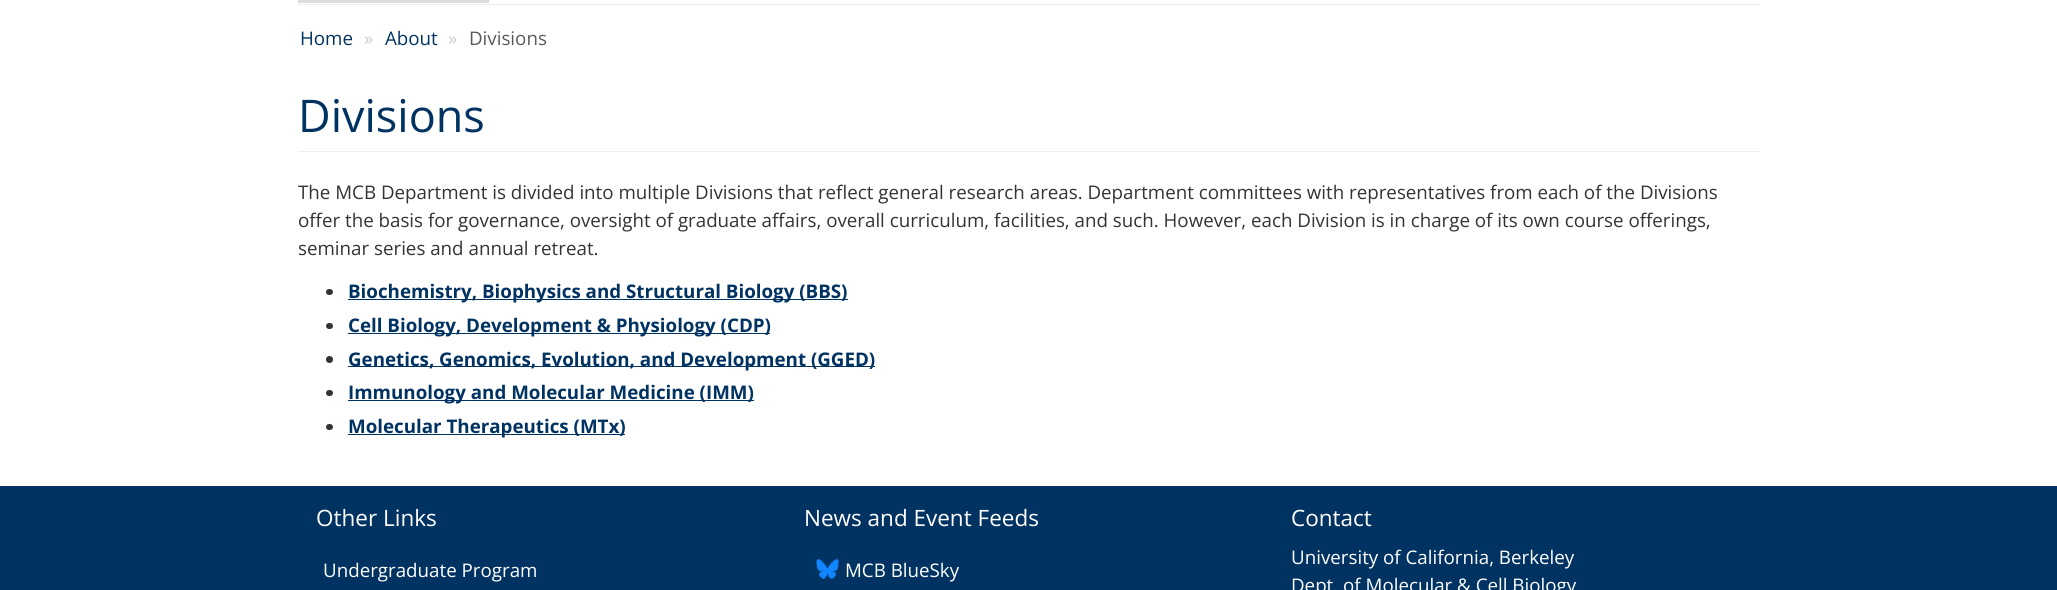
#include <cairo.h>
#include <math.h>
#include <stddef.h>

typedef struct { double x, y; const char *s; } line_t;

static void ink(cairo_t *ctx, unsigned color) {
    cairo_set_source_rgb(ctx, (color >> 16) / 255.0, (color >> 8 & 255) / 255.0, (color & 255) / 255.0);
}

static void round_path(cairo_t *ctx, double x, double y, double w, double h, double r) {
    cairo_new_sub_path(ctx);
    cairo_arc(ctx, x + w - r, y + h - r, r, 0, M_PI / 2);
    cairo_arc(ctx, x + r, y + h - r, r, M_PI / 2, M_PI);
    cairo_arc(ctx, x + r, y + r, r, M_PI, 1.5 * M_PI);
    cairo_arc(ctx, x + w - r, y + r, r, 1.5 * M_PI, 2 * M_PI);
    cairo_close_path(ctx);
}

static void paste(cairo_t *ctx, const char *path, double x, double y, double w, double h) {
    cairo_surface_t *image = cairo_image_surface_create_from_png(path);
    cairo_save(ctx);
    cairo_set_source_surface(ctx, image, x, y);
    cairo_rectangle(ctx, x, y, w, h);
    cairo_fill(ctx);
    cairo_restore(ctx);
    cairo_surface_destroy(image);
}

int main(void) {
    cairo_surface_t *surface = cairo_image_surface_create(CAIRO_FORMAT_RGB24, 2057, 590);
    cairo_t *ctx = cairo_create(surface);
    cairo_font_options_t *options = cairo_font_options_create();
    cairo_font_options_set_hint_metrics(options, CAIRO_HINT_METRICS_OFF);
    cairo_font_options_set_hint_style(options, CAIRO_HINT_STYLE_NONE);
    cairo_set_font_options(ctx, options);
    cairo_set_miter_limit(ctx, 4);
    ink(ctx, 0xFFFFFF);
    cairo_paint(ctx);
    ink(ctx, 0xDDDDDD);
    cairo_rectangle(ctx, 298, 0, 191, 3);
    cairo_fill(ctx);
    ink(ctx, 0xEEEEEE);
    cairo_rectangle(ctx, 298, 4, 1462, 1);
    cairo_fill(ctx);
    cairo_select_font_face(ctx, "Open Sans", CAIRO_FONT_SLANT_NORMAL, CAIRO_FONT_WEIGHT_NORMAL);
    cairo_set_font_size(ctx, 18.75);
    ink(ctx, 0x003262);
    cairo_move_to(ctx, 300, 45);
    cairo_show_text(ctx, "Home");
    ink(ctx, 0xCCCCCC);
    cairo_move_to(ctx, 364, 45);
    cairo_show_text(ctx, "»");
    ink(ctx, 0x003262);
    cairo_move_to(ctx, 385, 45);
    cairo_show_text(ctx, "About");
    ink(ctx, 0xCCCCCC);
    cairo_move_to(ctx, 448, 45);
    cairo_show_text(ctx, "»");
    ink(ctx, 0x595959);
    cairo_move_to(ctx, 469, 45);
    cairo_show_text(ctx, "Divisions");
    ink(ctx, 0xEEEEEE);
    cairo_rectangle(ctx, 298, 151, 1462, 1);
    cairo_fill(ctx);
    cairo_set_font_size(ctx, 45);
    ink(ctx, 0x003262);
    cairo_move_to(ctx, 298, 132);
    cairo_show_text(ctx, "Divisions");
    cairo_set_font_size(ctx, 18.75);
    ink(ctx, 0x333333);
    {
        static const line_t items[] = {
            {298, 199, "The MCB Department is divided into multiple Divisions that reflect general research areas. Department committees with representatives from each of the Divisions"},
            {298, 227, "offer the basis for governance, oversight of graduate affairs, overall curriculum, facilities, and such. However, each Division is in charge of its own course offerings,"},
            {298, 255, "seminar series and annual retreat."},
        };
        for (size_t i = 0; i < sizeof items / sizeof *items; i++) {
            cairo_move_to(ctx, items[i].x, items[i].y);
            cairo_show_text(ctx, items[i].s);
        }
    }
    round_path(ctx, 326, 289, 7, 6, 3);
    cairo_fill(ctx);
    ink(ctx, 0x003262);
    cairo_rectangle(ctx, 348, 299, 500, 1);
    cairo_fill(ctx);
    cairo_select_font_face(ctx, "Open Sans", CAIRO_FONT_SLANT_NORMAL, CAIRO_FONT_WEIGHT_BOLD);
    cairo_move_to(ctx, 348, 298);
    cairo_show_text(ctx, "Biochemistry, Biophysics and Structural Biology (BBS)");
    ink(ctx, 0x333333);
    round_path(ctx, 326, 323, 7, 6, 3);
    cairo_fill(ctx);
    ink(ctx, 0x003262);
    cairo_rectangle(ctx, 348, 333, 422, 1);
    cairo_fill(ctx);
    cairo_move_to(ctx, 348, 332);
    cairo_show_text(ctx, "Cell Biology, Development & Physiology (CDP)");
    ink(ctx, 0x333333);
    cairo_new_path(ctx);
    cairo_arc(ctx, 329.5, 359.5, 3.5, 0, 2 * M_PI);
    cairo_fill(ctx);
    ink(ctx, 0x003262);
    cairo_rectangle(ctx, 348, 366, 527, 1);
    cairo_fill(ctx);
    cairo_move_to(ctx, 348, 366);
    cairo_show_text(ctx, "Genetics, Genomics, Evolution, and Development (GGED)");
    ink(ctx, 0x333333);
    round_path(ctx, 326, 390, 7, 6, 3);
    cairo_fill(ctx);
    ink(ctx, 0x003262);
    cairo_rectangle(ctx, 348, 400, 406, 1);
    cairo_fill(ctx);
    cairo_move_to(ctx, 348, 399);
    cairo_show_text(ctx, "Immunology and Molecular Medicine (IMM)");
    ink(ctx, 0x333333);
    round_path(ctx, 326, 424, 7, 6, 3);
    cairo_fill(ctx);
    ink(ctx, 0x003262);
    cairo_rectangle(ctx, 348, 434, 277, 1);
    cairo_fill(ctx);
    cairo_move_to(ctx, 348, 433);
    cairo_show_text(ctx, "Molecular Therapeutics (MTx)");
    cairo_rectangle(ctx, 0, 486, 2057, 104);
    cairo_fill(ctx);
    cairo_select_font_face(ctx, "Open Sans", CAIRO_FONT_SLANT_NORMAL, CAIRO_FONT_WEIGHT_NORMAL);
    cairo_set_font_size(ctx, 22.5);
    ink(ctx, 0xFFFFFF);
    cairo_move_to(ctx, 316, 526);
    cairo_show_text(ctx, "Other Links");
    cairo_set_font_size(ctx, 18.75);
    cairo_move_to(ctx, 323, 577);
    cairo_show_text(ctx, "Undergraduate Program");
    cairo_set_font_size(ctx, 22.5);
    cairo_move_to(ctx, 804, 526);
    cairo_show_text(ctx, "News and Event Feeds");
    paste(ctx, "media/1.png", 816, 559, 23, 20);
    cairo_set_font_size(ctx, 18.75);
    cairo_move_to(ctx, 845, 577);
    cairo_show_text(ctx, "MCB BlueSky");
    cairo_set_font_size(ctx, 22.5);
    cairo_move_to(ctx, 1291, 526);
    cairo_show_text(ctx, "Contact");
    cairo_set_font_size(ctx, 18.75);
    cairo_move_to(ctx, 1291, 564);
    cairo_show_text(ctx, "University of California, Berkeley");
    cairo_move_to(ctx, 1291, 592);
    cairo_show_text(ctx, "Dept. of Molecular & Cell Biology");
    cairo_surface_write_to_png(surface, "image.png");
    cairo_font_options_destroy(options);
    cairo_destroy(ctx);
    cairo_surface_destroy(surface);
    return 0;
}
